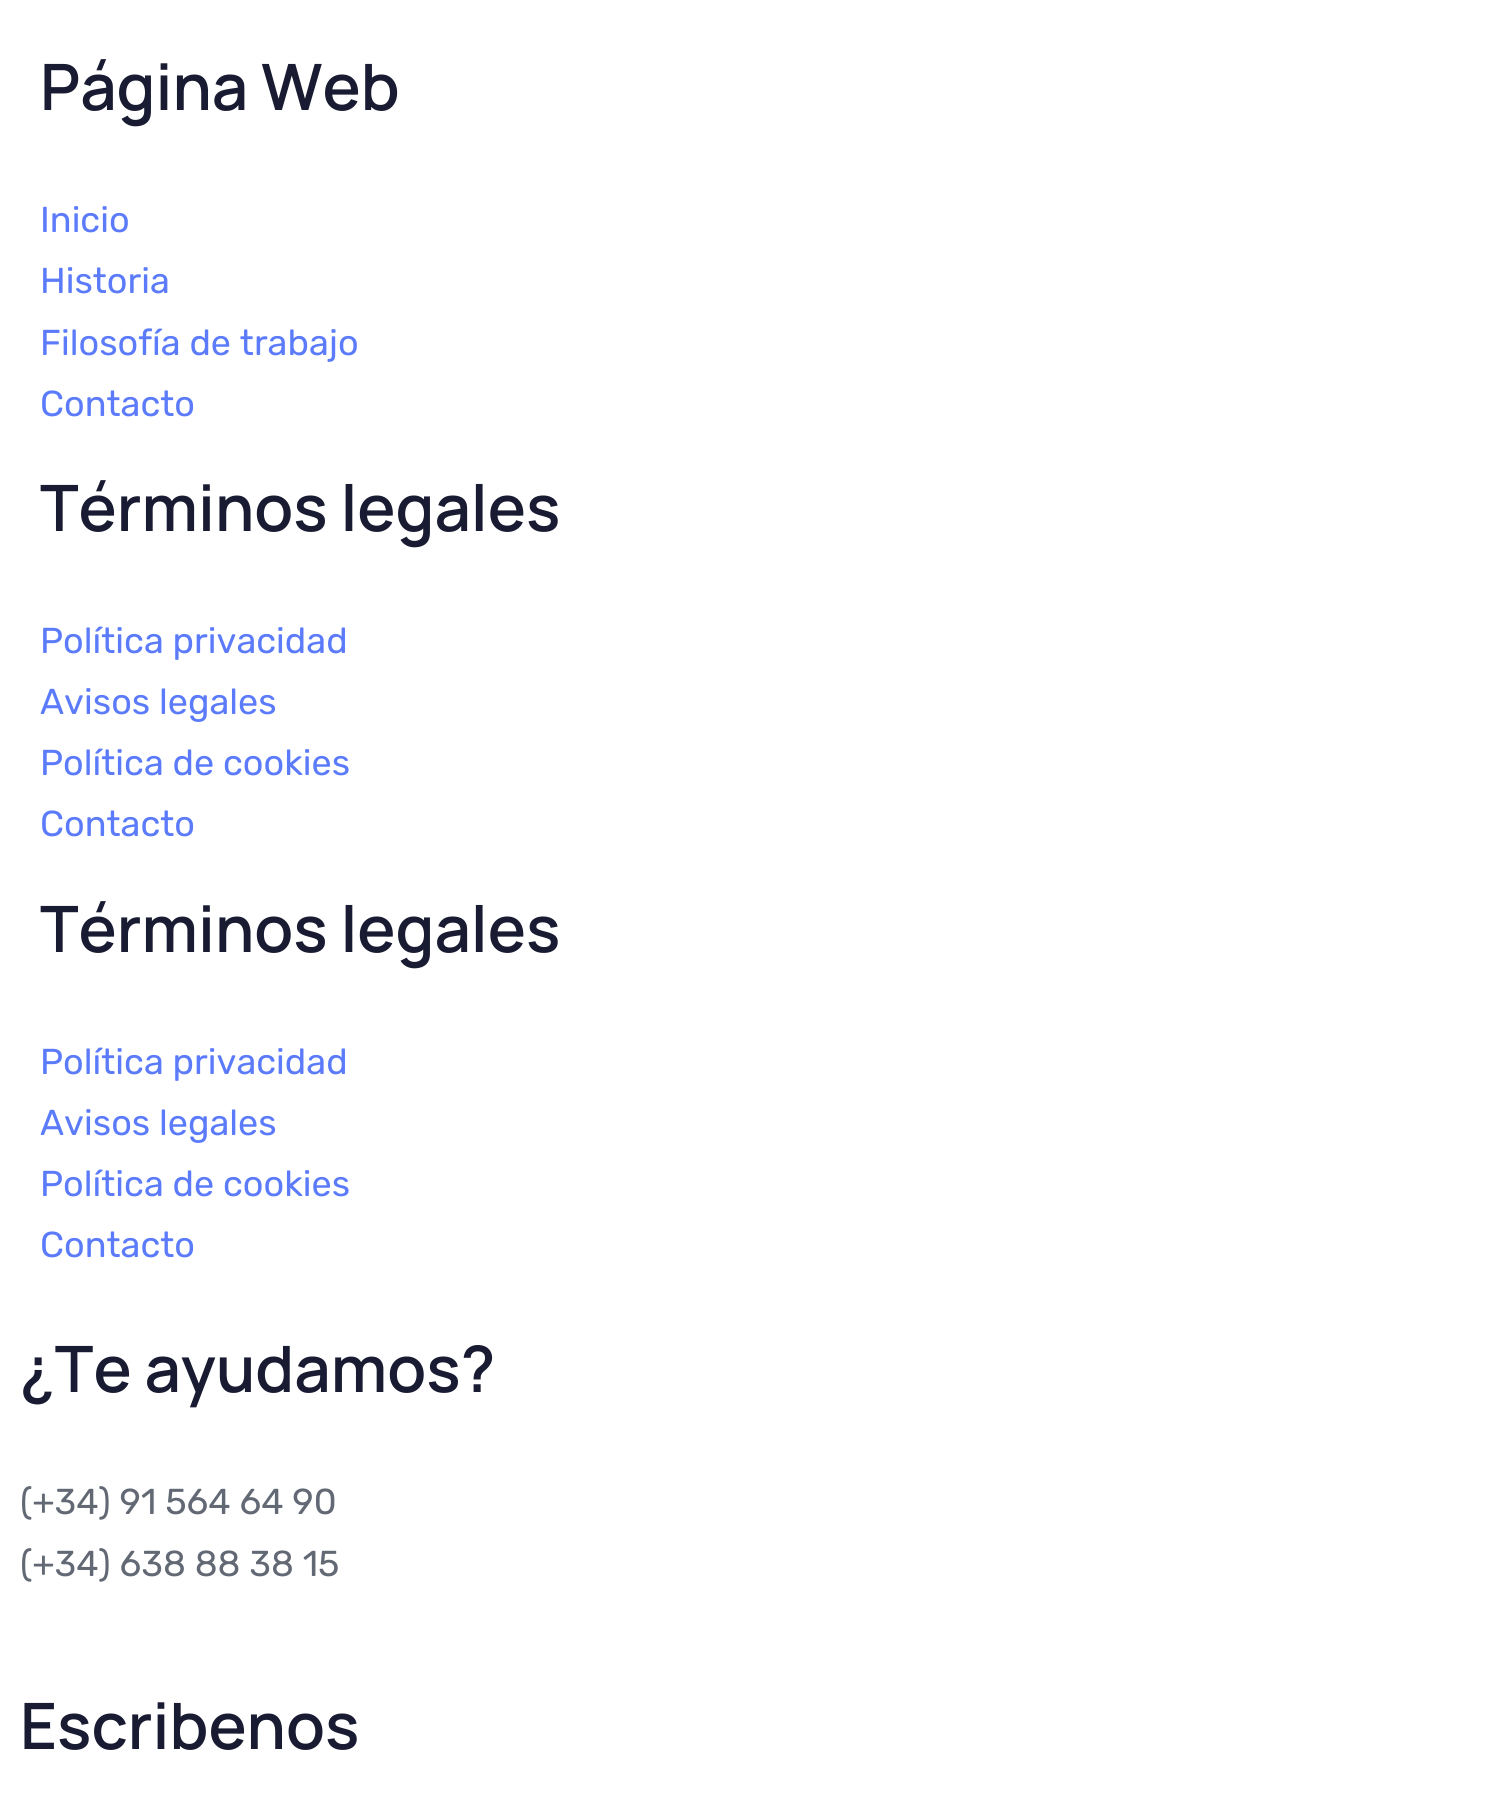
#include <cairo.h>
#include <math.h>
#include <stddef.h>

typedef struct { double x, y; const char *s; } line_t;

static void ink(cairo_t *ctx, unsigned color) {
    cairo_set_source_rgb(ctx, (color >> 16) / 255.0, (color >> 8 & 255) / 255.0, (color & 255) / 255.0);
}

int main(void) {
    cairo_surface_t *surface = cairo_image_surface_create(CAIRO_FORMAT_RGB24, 1508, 1811);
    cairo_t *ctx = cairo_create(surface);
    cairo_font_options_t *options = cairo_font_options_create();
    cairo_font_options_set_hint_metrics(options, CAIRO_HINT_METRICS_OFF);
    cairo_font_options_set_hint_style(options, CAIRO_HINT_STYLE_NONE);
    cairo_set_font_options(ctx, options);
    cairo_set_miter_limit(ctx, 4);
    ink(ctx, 0xFFFFFF);
    cairo_paint(ctx);
    cairo_select_font_face(ctx, "Manrope SemiBold", CAIRO_FONT_SLANT_NORMAL, CAIRO_FONT_WEIGHT_NORMAL);
    cairo_set_font_size(ctx, 64);
    ink(ctx, 0x181B31);
    cairo_move_to(ctx, 40, 110);
    cairo_show_text(ctx, "Página Web");
    cairo_select_font_face(ctx, "Rubik", CAIRO_FONT_SLANT_NORMAL, CAIRO_FONT_WEIGHT_NORMAL);
    cairo_set_font_size(ctx, 36);
    ink(ctx, 0x5B7BFB);
    {
        static const line_t items[] = {
            {40, 232, "Inicio"},
            {40, 293, "Historia"},
            {40, 355, "Filosofía de trabajo"},
            {40, 416, "Contacto"},
        };
        for (size_t i = 0; i < sizeof items / sizeof *items; i++) {
            cairo_move_to(ctx, items[i].x, items[i].y);
            cairo_show_text(ctx, items[i].s);
        }
    }
    cairo_select_font_face(ctx, "Manrope SemiBold", CAIRO_FONT_SLANT_NORMAL, CAIRO_FONT_WEIGHT_NORMAL);
    cairo_set_font_size(ctx, 64);
    ink(ctx, 0x181B31);
    cairo_move_to(ctx, 40, 531);
    cairo_show_text(ctx, "Términos legales");
    cairo_select_font_face(ctx, "Rubik", CAIRO_FONT_SLANT_NORMAL, CAIRO_FONT_WEIGHT_NORMAL);
    cairo_set_font_size(ctx, 36);
    ink(ctx, 0x5B7BFB);
    {
        static const line_t items[] = {
            {40, 653, "Política privacidad"},
            {40, 714, "Avisos legales"},
            {40, 775, "Política de cookies"},
            {40, 836, "Contacto"},
        };
        for (size_t i = 0; i < sizeof items / sizeof *items; i++) {
            cairo_move_to(ctx, items[i].x, items[i].y);
            cairo_show_text(ctx, items[i].s);
        }
    }
    cairo_select_font_face(ctx, "Manrope SemiBold", CAIRO_FONT_SLANT_NORMAL, CAIRO_FONT_WEIGHT_NORMAL);
    cairo_set_font_size(ctx, 64);
    ink(ctx, 0x181B31);
    cairo_move_to(ctx, 40, 952);
    cairo_show_text(ctx, "Términos legales");
    cairo_select_font_face(ctx, "Rubik", CAIRO_FONT_SLANT_NORMAL, CAIRO_FONT_WEIGHT_NORMAL);
    cairo_set_font_size(ctx, 36);
    ink(ctx, 0x5B7BFB);
    {
        static const line_t items[] = {
            {40, 1074, "Política privacidad"},
            {40, 1135, "Avisos legales"},
            {40, 1196, "Política de cookies"},
            {40, 1257, "Contacto"},
        };
        for (size_t i = 0; i < sizeof items / sizeof *items; i++) {
            cairo_move_to(ctx, items[i].x, items[i].y);
            cairo_show_text(ctx, items[i].s);
        }
    }
    cairo_select_font_face(ctx, "Manrope SemiBold", CAIRO_FONT_SLANT_NORMAL, CAIRO_FONT_WEIGHT_NORMAL);
    cairo_set_font_size(ctx, 64);
    ink(ctx, 0x181B31);
    cairo_move_to(ctx, 20, 1392);
    cairo_show_text(ctx, "¿Te ayudamos?");
    cairo_select_font_face(ctx, "Rubik", CAIRO_FONT_SLANT_NORMAL, CAIRO_FONT_WEIGHT_NORMAL);
    cairo_set_font_size(ctx, 36);
    ink(ctx, 0x626974);
    cairo_move_to(ctx, 20, 1514);
    cairo_show_text(ctx, "(+34) 91 564 64 90");
    cairo_move_to(ctx, 20, 1576);
    cairo_show_text(ctx, "(+34) 638 88 38 15");
    cairo_select_font_face(ctx, "Manrope SemiBold", CAIRO_FONT_SLANT_NORMAL, CAIRO_FONT_WEIGHT_NORMAL);
    cairo_set_font_size(ctx, 64);
    ink(ctx, 0x181B31);
    cairo_move_to(ctx, 20, 1749);
    cairo_show_text(ctx, "Escribenos");
    cairo_surface_write_to_png(surface, "image.png");
    cairo_font_options_destroy(options);
    cairo_destroy(ctx);
    cairo_surface_destroy(surface);
    return 0;
}
